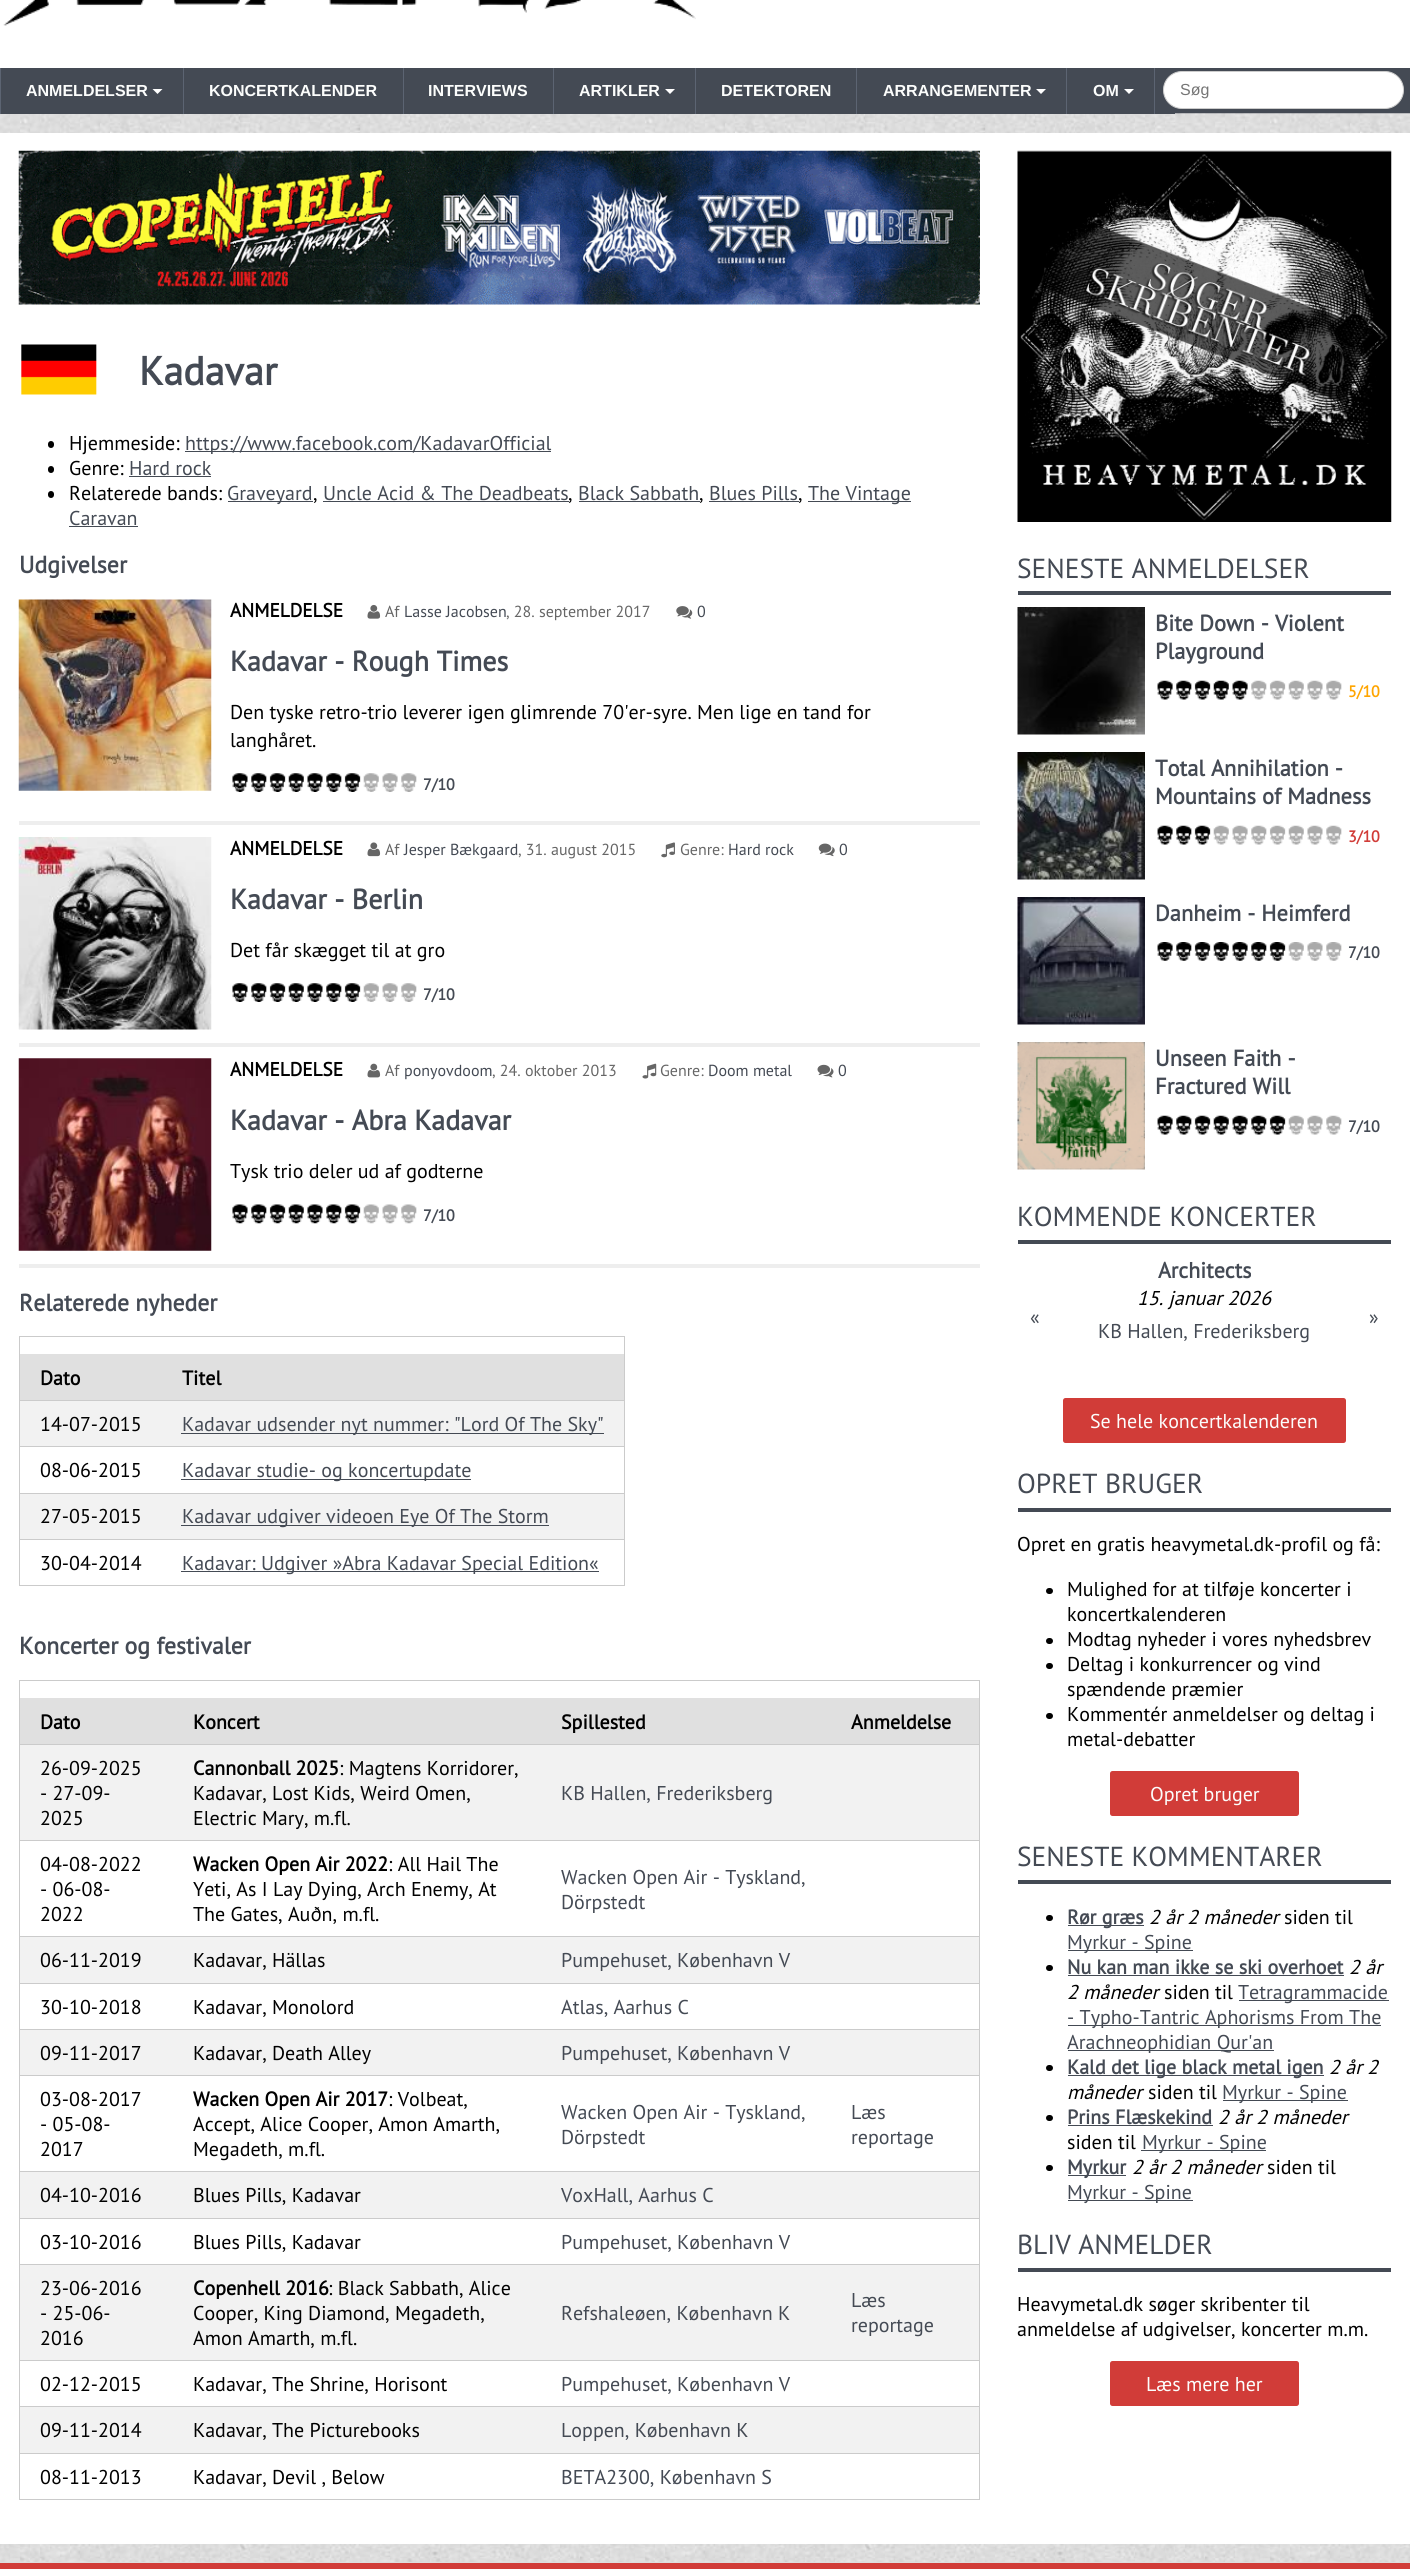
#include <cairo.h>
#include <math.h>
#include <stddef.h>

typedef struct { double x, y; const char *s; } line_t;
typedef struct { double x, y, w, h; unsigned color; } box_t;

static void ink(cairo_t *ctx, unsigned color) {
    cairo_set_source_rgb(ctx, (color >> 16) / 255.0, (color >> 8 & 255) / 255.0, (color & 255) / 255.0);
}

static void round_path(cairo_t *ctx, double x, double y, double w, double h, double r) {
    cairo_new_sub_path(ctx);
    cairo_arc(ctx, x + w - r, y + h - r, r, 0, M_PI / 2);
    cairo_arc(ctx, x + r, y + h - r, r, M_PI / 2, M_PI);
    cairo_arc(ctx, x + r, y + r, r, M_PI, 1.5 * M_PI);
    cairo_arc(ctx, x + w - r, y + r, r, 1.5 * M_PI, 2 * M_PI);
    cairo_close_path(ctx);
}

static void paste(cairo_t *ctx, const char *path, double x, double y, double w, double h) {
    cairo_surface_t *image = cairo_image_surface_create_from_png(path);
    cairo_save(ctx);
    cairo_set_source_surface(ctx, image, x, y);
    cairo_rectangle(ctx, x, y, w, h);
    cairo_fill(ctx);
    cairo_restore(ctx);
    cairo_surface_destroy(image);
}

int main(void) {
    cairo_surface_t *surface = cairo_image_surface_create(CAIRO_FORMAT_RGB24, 1410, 2569);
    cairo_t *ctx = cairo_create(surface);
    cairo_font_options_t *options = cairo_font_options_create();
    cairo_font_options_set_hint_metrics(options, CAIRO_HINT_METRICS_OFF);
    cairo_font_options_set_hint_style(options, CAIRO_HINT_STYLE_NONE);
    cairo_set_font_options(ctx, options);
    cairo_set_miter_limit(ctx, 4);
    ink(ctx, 0xFFFFFF);
    cairo_paint(ctx);
    paste(ctx, "media/1.png", 3, 0, 693, 26);
    ink(ctx, 0x444A54);
    cairo_rectangle(ctx, 1175, 68, 235, 46);
    cairo_fill(ctx);
    paste(ctx, "media/2.png", 0, 113, 1410, 2449);
    {
        static const box_t items[] = {
            {1, 68, 1174, 46, 0x444A54},
            {0, 68, 1, 46, 0x5C6472},
            {183, 68, 1, 46, 0x5C6472},
        };
        for (size_t i = 0; i < sizeof items / sizeof *items; i++) {
            ink(ctx, items[i].color);
            cairo_rectangle(ctx, items[i].x, items[i].y, items[i].w, items[i].h);
            cairo_fill(ctx);
        }
    }
    cairo_select_font_face(ctx, "Liberation Sans", CAIRO_FONT_SLANT_NORMAL, CAIRO_FONT_WEIGHT_BOLD);
    cairo_set_font_size(ctx, 16);
    ink(ctx, 0xFCFDFC);
    cairo_move_to(ctx, 26, 96);
    cairo_show_text(ctx, "ANMELDELSER");
    ink(ctx, 0xFFFFFF);
    cairo_new_path(ctx);
    cairo_move_to(ctx, 152.5, 89);
    cairo_line_to(ctx, 162.5, 89);
    cairo_line_to(ctx, 157.5, 94);
    cairo_close_path(ctx);
    cairo_fill(ctx);
    ink(ctx, 0x5C6472);
    cairo_rectangle(ctx, 403, 68, 1, 46);
    cairo_fill(ctx);
    ink(ctx, 0xFCFDFC);
    cairo_move_to(ctx, 209, 96);
    cairo_show_text(ctx, "KONCERTKALENDER");
    ink(ctx, 0x5C6472);
    cairo_rectangle(ctx, 553, 68, 1, 46);
    cairo_fill(ctx);
    ink(ctx, 0xFCFDFC);
    cairo_move_to(ctx, 428, 96);
    cairo_show_text(ctx, "INTERVIEWS");
    ink(ctx, 0x5C6472);
    cairo_rectangle(ctx, 695, 68, 1, 46);
    cairo_fill(ctx);
    ink(ctx, 0xFCFDFC);
    cairo_move_to(ctx, 579, 96);
    cairo_show_text(ctx, "ARTIKLER");
    ink(ctx, 0xFFFFFF);
    cairo_new_path(ctx);
    cairo_move_to(ctx, 665, 89);
    cairo_line_to(ctx, 675, 89);
    cairo_line_to(ctx, 670, 94);
    cairo_close_path(ctx);
    cairo_fill(ctx);
    ink(ctx, 0x5C6472);
    cairo_rectangle(ctx, 856, 68, 1, 46);
    cairo_fill(ctx);
    ink(ctx, 0xFCFDFC);
    cairo_move_to(ctx, 721, 96);
    cairo_show_text(ctx, "DETEKTOREN");
    ink(ctx, 0x5C6472);
    cairo_rectangle(ctx, 1066, 68, 1, 46);
    cairo_fill(ctx);
    ink(ctx, 0xFCFDFC);
    cairo_move_to(ctx, 883, 96);
    cairo_show_text(ctx, "ARRANGEMENTER");
    ink(ctx, 0xFFFFFF);
    cairo_new_path(ctx);
    cairo_move_to(ctx, 1036, 89);
    cairo_line_to(ctx, 1046, 89);
    cairo_line_to(ctx, 1041, 94);
    cairo_close_path(ctx);
    cairo_fill(ctx);
    ink(ctx, 0x5C6472);
    cairo_rectangle(ctx, 1154, 68, 1, 46);
    cairo_fill(ctx);
    ink(ctx, 0xFCFDFC);
    cairo_move_to(ctx, 1093, 96);
    cairo_show_text(ctx, "OM");
    ink(ctx, 0xFFFFFF);
    cairo_new_path(ctx);
    cairo_move_to(ctx, 1124, 89);
    cairo_line_to(ctx, 1134, 89);
    cairo_line_to(ctx, 1129, 94);
    cairo_close_path(ctx);
    cairo_fill(ctx);
    round_path(ctx, 1163.5, 71.5, 240, 37, 18.5);
    cairo_fill_preserve(ctx);
    ink(ctx, 0xCCCCCC);
    cairo_set_line_width(ctx, 1);
    cairo_stroke(ctx);
    cairo_select_font_face(ctx, "Liberation Sans", CAIRO_FONT_SLANT_NORMAL, CAIRO_FONT_WEIGHT_NORMAL);
    ink(ctx, 0x757575);
    cairo_move_to(ctx, 1180, 95);
    cairo_show_text(ctx, "Søg");
    ink(ctx, 0xDDDDDD);
    cairo_rectangle(ctx, 0, 2562, 1410, 1);
    cairo_fill(ctx);
    ink(ctx, 0xFFFFFF);
    cairo_rectangle(ctx, 0, 133, 1410, 2411);
    cairo_fill(ctx);
    paste(ctx, "media/3.png", 18, 150, 962, 155);
    paste(ctx, "media/4.png", 21, 344, 76, 51);
    cairo_select_font_face(ctx, "PT Sans", CAIRO_FONT_SLANT_NORMAL, CAIRO_FONT_WEIGHT_BOLD);
    cairo_set_font_size(ctx, 40);
    ink(ctx, 0x444A54);
    cairo_move_to(ctx, 139, 385);
    cairo_show_text(ctx, "Kadavar");
    ink(ctx, 0x000000);
    round_path(ctx, 48, 441, 6, 7, 3);
    cairo_fill(ctx);
    cairo_select_font_face(ctx, "PT Sans", CAIRO_FONT_SLANT_NORMAL, CAIRO_FONT_WEIGHT_NORMAL);
    cairo_set_font_size(ctx, 20);
    cairo_move_to(ctx, 69, 450);
    cairo_show_text(ctx, "Hjemmeside:");
    ink(ctx, 0x444A54);
    cairo_rectangle(ctx, 185, 451, 366, 1);
    cairo_fill(ctx);
    cairo_move_to(ctx, 185, 450);
    cairo_show_text(ctx, "https://www.facebook.com/KadavarOfficial");
    ink(ctx, 0x000000);
    round_path(ctx, 48, 466, 6, 7, 3);
    cairo_fill(ctx);
    cairo_move_to(ctx, 69, 475);
    cairo_show_text(ctx, "Genre:");
    ink(ctx, 0x444A54);
    cairo_move_to(ctx, 129, 475);
    cairo_show_text(ctx, "Hard rock");
    cairo_rectangle(ctx, 129, 476, 82, 1);
    cairo_fill(ctx);
    ink(ctx, 0x000000);
    round_path(ctx, 48, 491, 6, 7, 3);
    cairo_fill(ctx);
    cairo_move_to(ctx, 69, 500);
    cairo_show_text(ctx, "Relaterede bands:");
    ink(ctx, 0x444A54);
    cairo_rectangle(ctx, 228, 501, 85, 1);
    cairo_fill(ctx);
    cairo_move_to(ctx, 227, 500);
    cairo_show_text(ctx, "Graveyard");
    cairo_move_to(ctx, 323, 500);
    cairo_show_text(ctx, "Uncle Acid & The Deadbeats");
    cairo_rectangle(ctx, 323, 501, 246, 1);
    cairo_fill(ctx);
    cairo_move_to(ctx, 578, 500);
    cairo_show_text(ctx, "Black Sabbath");
    cairo_rectangle(ctx, 579, 501, 121, 1);
    cairo_fill(ctx);
    cairo_move_to(ctx, 709, 500);
    cairo_show_text(ctx, "Blues Pills");
    cairo_rectangle(ctx, 709, 501, 90, 1);
    cairo_fill(ctx);
    cairo_rectangle(ctx, 808, 501, 103, 1);
    cairo_fill(ctx);
    cairo_move_to(ctx, 808, 500);
    cairo_show_text(ctx, "The Vintage");
    ink(ctx, 0x000000);
    {
        static const line_t items[] = {
            {313, 500, ","},
            {568, 500, ","},
            {699, 500, ","},
            {798, 500, ","},
        };
        for (size_t i = 0; i < sizeof items / sizeof *items; i++) {
            cairo_move_to(ctx, items[i].x, items[i].y);
            cairo_show_text(ctx, items[i].s);
        }
    }
    ink(ctx, 0x444A54);
    cairo_move_to(ctx, 69, 525);
    cairo_show_text(ctx, "Caravan");
    cairo_rectangle(ctx, 69, 526, 69, 1);
    cairo_fill(ctx);
    cairo_select_font_face(ctx, "PT Sans", CAIRO_FONT_SLANT_NORMAL, CAIRO_FONT_WEIGHT_BOLD);
    cairo_set_font_size(ctx, 23.75);
    cairo_move_to(ctx, 19, 573);
    cairo_show_text(ctx, "Udgivelser");
    ink(ctx, 0xEEEEEE);
    cairo_rectangle(ctx, 19, 821, 961, 4);
    cairo_fill(ctx);
    paste(ctx, "media/5.png", 18, 599, 194, 192);
    cairo_set_font_size(ctx, 19.25);
    ink(ctx, 0x000000);
    cairo_move_to(ctx, 230, 617);
    cairo_show_text(ctx, "ANMELDELSE");
    paste(ctx, "media/6.png", 367, 604, 14, 15);
    cairo_select_font_face(ctx, "PT Sans", CAIRO_FONT_SLANT_NORMAL, CAIRO_FONT_WEIGHT_NORMAL);
    cairo_set_font_size(ctx, 16);
    ink(ctx, 0x666666);
    cairo_move_to(ctx, 385, 617);
    cairo_show_text(ctx, "Af");
    ink(ctx, 0x444A54);
    cairo_move_to(ctx, 404, 617);
    cairo_show_text(ctx, "Lasse Jacobsen");
    ink(ctx, 0x666666);
    cairo_move_to(ctx, 506, 617);
    cairo_show_text(ctx, ", 28. september 2017");
    paste(ctx, "media/7.png", 676, 606, 17, 13);
    ink(ctx, 0x444A54);
    cairo_move_to(ctx, 697, 617);
    cairo_show_text(ctx, "0");
    cairo_select_font_face(ctx, "PT Sans", CAIRO_FONT_SLANT_NORMAL, CAIRO_FONT_WEIGHT_BOLD);
    cairo_set_font_size(ctx, 28);
    cairo_move_to(ctx, 230, 671);
    cairo_show_text(ctx, "Kadavar - Rough Times");
    cairo_select_font_face(ctx, "PT Sans", CAIRO_FONT_SLANT_NORMAL, CAIRO_FONT_WEIGHT_NORMAL);
    cairo_set_font_size(ctx, 20);
    ink(ctx, 0x000000);
    cairo_move_to(ctx, 230, 719);
    cairo_show_text(ctx, "Den tyske retro-trio leverer igen glimrende 70'er-syre. Men lige en tand for");
    cairo_move_to(ctx, 230, 747);
    cairo_show_text(ctx, "langhåret.");
    paste(ctx, "media/8.png", 232, 773, 185, 19);
    cairo_select_font_face(ctx, "PT Sans", CAIRO_FONT_SLANT_NORMAL, CAIRO_FONT_WEIGHT_BOLD);
    cairo_set_font_size(ctx, 16);
    ink(ctx, 0x444A54);
    cairo_move_to(ctx, 423, 790);
    cairo_show_text(ctx, "7/10");
    ink(ctx, 0xEEEEEE);
    cairo_rectangle(ctx, 19, 1043, 961, 4);
    cairo_fill(ctx);
    paste(ctx, "media/9.png", 18, 837, 194, 193);
    cairo_set_font_size(ctx, 19.25);
    ink(ctx, 0x000000);
    cairo_move_to(ctx, 230, 855);
    cairo_show_text(ctx, "ANMELDELSE");
    paste(ctx, "media/10.png", 367, 842, 14, 15);
    cairo_select_font_face(ctx, "PT Sans", CAIRO_FONT_SLANT_NORMAL, CAIRO_FONT_WEIGHT_NORMAL);
    cairo_set_font_size(ctx, 16);
    ink(ctx, 0x666666);
    cairo_move_to(ctx, 385, 855);
    cairo_show_text(ctx, "Af");
    ink(ctx, 0x444A54);
    cairo_move_to(ctx, 404, 855);
    cairo_show_text(ctx, "Jesper Bækgaard");
    ink(ctx, 0x666666);
    cairo_move_to(ctx, 518, 855);
    cairo_show_text(ctx, ", 31. august 2015");
    paste(ctx, "media/11.png", 661, 842, 14, 16);
    cairo_move_to(ctx, 680, 855);
    cairo_show_text(ctx, "Genre:");
    ink(ctx, 0x444A54);
    cairo_move_to(ctx, 728, 855);
    cairo_show_text(ctx, "Hard rock");
    paste(ctx, "media/12.png", 818, 843, 17, 14);
    cairo_move_to(ctx, 839, 855);
    cairo_show_text(ctx, "0");
    cairo_select_font_face(ctx, "PT Sans", CAIRO_FONT_SLANT_NORMAL, CAIRO_FONT_WEIGHT_BOLD);
    cairo_set_font_size(ctx, 28);
    cairo_move_to(ctx, 230, 909);
    cairo_show_text(ctx, "Kadavar - Berlin");
    cairo_select_font_face(ctx, "PT Sans", CAIRO_FONT_SLANT_NORMAL, CAIRO_FONT_WEIGHT_NORMAL);
    cairo_set_font_size(ctx, 20);
    ink(ctx, 0x000000);
    cairo_move_to(ctx, 230, 957);
    cairo_show_text(ctx, "Det får skægget til at gro");
    paste(ctx, "media/8.png", 232, 983, 185, 19);
    cairo_select_font_face(ctx, "PT Sans", CAIRO_FONT_SLANT_NORMAL, CAIRO_FONT_WEIGHT_BOLD);
    cairo_set_font_size(ctx, 16);
    ink(ctx, 0x444A54);
    cairo_move_to(ctx, 423, 1000);
    cairo_show_text(ctx, "7/10");
    ink(ctx, 0xEEEEEE);
    cairo_rectangle(ctx, 19, 1264, 961, 4);
    cairo_fill(ctx);
    paste(ctx, "media/13.png", 18, 1058, 194, 193);
    cairo_set_font_size(ctx, 19.25);
    ink(ctx, 0x000000);
    cairo_move_to(ctx, 230, 1076);
    cairo_show_text(ctx, "ANMELDELSE");
    paste(ctx, "media/14.png", 367, 1063, 14, 15);
    cairo_select_font_face(ctx, "PT Sans", CAIRO_FONT_SLANT_NORMAL, CAIRO_FONT_WEIGHT_NORMAL);
    cairo_set_font_size(ctx, 16);
    ink(ctx, 0x666666);
    cairo_move_to(ctx, 385, 1076);
    cairo_show_text(ctx, "Af");
    ink(ctx, 0x444A54);
    cairo_move_to(ctx, 404, 1076);
    cairo_show_text(ctx, "ponyovdoom");
    ink(ctx, 0x666666);
    cairo_move_to(ctx, 492, 1076);
    cairo_show_text(ctx, ", 24. oktober 2013");
    paste(ctx, "media/15.png", 642, 1063, 15, 16);
    cairo_move_to(ctx, 660, 1076);
    cairo_show_text(ctx, "Genre:");
    ink(ctx, 0x444A54);
    cairo_move_to(ctx, 708, 1076);
    cairo_show_text(ctx, "Doom metal");
    paste(ctx, "media/16.png", 817, 1064, 17, 14);
    cairo_move_to(ctx, 838, 1076);
    cairo_show_text(ctx, "0");
    cairo_select_font_face(ctx, "PT Sans", CAIRO_FONT_SLANT_NORMAL, CAIRO_FONT_WEIGHT_BOLD);
    cairo_set_font_size(ctx, 28);
    cairo_move_to(ctx, 230, 1130);
    cairo_show_text(ctx, "Kadavar - Abra Kadavar");
    cairo_select_font_face(ctx, "PT Sans", CAIRO_FONT_SLANT_NORMAL, CAIRO_FONT_WEIGHT_NORMAL);
    cairo_set_font_size(ctx, 20);
    ink(ctx, 0x000000);
    cairo_move_to(ctx, 230, 1178);
    cairo_show_text(ctx, "Tysk trio deler ud af godterne");
    paste(ctx, "media/17.png", 232, 1204, 185, 20);
    cairo_select_font_face(ctx, "PT Sans", CAIRO_FONT_SLANT_NORMAL, CAIRO_FONT_WEIGHT_BOLD);
    cairo_set_font_size(ctx, 16);
    ink(ctx, 0x444A54);
    cairo_move_to(ctx, 423, 1221);
    cairo_show_text(ctx, "7/10");
    cairo_set_font_size(ctx, 23.75);
    cairo_move_to(ctx, 19, 1311);
    cairo_show_text(ctx, "Relaterede nyheder");
    {
        static const box_t items[] = {
            {19, 1336, 606, 1, 0xCBCBCB},
            {624, 1336, 1, 250, 0xCBCBCB},
            {19, 1585, 606, 1, 0xCBCBCB},
            {19, 1336, 1, 250, 0xCBCBCB},
            {20, 1354, 604, 46, 0xE0E0E0},
        };
        for (size_t i = 0; i < sizeof items / sizeof *items; i++) {
            ink(ctx, items[i].color);
            cairo_rectangle(ctx, items[i].x, items[i].y, items[i].w, items[i].h);
            cairo_fill(ctx);
        }
    }
    cairo_set_font_size(ctx, 20);
    ink(ctx, 0x000000);
    cairo_move_to(ctx, 40, 1385);
    cairo_show_text(ctx, "Dato");
    ink(ctx, 0xCBCBCB);
    cairo_rectangle(ctx, 19, 1400, 606, 1);
    cairo_fill(ctx);
    ink(ctx, 0x000000);
    cairo_move_to(ctx, 182, 1385);
    cairo_show_text(ctx, "Titel");
    ink(ctx, 0xF2F2F2);
    cairo_rectangle(ctx, 20, 1401, 604, 45);
    cairo_fill(ctx);
    cairo_select_font_face(ctx, "PT Sans", CAIRO_FONT_SLANT_NORMAL, CAIRO_FONT_WEIGHT_NORMAL);
    ink(ctx, 0x000000);
    cairo_move_to(ctx, 40, 1431);
    cairo_show_text(ctx, "14-07-2015");
    ink(ctx, 0xCBCBCB);
    cairo_rectangle(ctx, 19, 1446, 606, 1);
    cairo_fill(ctx);
    ink(ctx, 0x444A54);
    cairo_rectangle(ctx, 181, 1433, 423, 1);
    cairo_fill(ctx);
    cairo_move_to(ctx, 182, 1431);
    cairo_show_text(ctx, "Kadavar udsender nyt nummer: \"Lord Of The Sky\"");
    ink(ctx, 0x000000);
    cairo_move_to(ctx, 40, 1477);
    cairo_show_text(ctx, "08-06-2015");
    ink(ctx, 0xCBCBCB);
    cairo_rectangle(ctx, 19, 1493, 606, 1);
    cairo_fill(ctx);
    ink(ctx, 0x444A54);
    cairo_rectangle(ctx, 181, 1479, 290, 1);
    cairo_fill(ctx);
    cairo_move_to(ctx, 182, 1477);
    cairo_show_text(ctx, "Kadavar studie- og koncertupdate");
    ink(ctx, 0xF2F2F2);
    cairo_rectangle(ctx, 20, 1494, 604, 45);
    cairo_fill(ctx);
    ink(ctx, 0x000000);
    cairo_move_to(ctx, 40, 1523);
    cairo_show_text(ctx, "27-05-2015");
    ink(ctx, 0xCBCBCB);
    cairo_rectangle(ctx, 19, 1539, 606, 1);
    cairo_fill(ctx);
    ink(ctx, 0x444A54);
    cairo_rectangle(ctx, 181, 1525, 368, 1);
    cairo_fill(ctx);
    cairo_move_to(ctx, 182, 1523);
    cairo_show_text(ctx, "Kadavar udgiver videoen Eye Of The Storm");
    ink(ctx, 0x000000);
    cairo_move_to(ctx, 40, 1570);
    cairo_show_text(ctx, "30-04-2014");
    ink(ctx, 0x444A54);
    cairo_rectangle(ctx, 181, 1571, 418, 1);
    cairo_fill(ctx);
    cairo_move_to(ctx, 182, 1570);
    cairo_show_text(ctx, "Kadavar: Udgiver »Abra Kadavar Special Edition«");
    cairo_select_font_face(ctx, "PT Sans", CAIRO_FONT_SLANT_NORMAL, CAIRO_FONT_WEIGHT_BOLD);
    cairo_set_font_size(ctx, 23.75);
    cairo_move_to(ctx, 19, 1654);
    cairo_show_text(ctx, "Koncerter og festivaler");
    {
        static const box_t items[] = {
            {19, 1680, 961, 1, 0xCBCBCB},
            {979, 1680, 1, 820, 0xCBCBCB},
            {19, 2499, 961, 1, 0xCBCBCB},
            {19, 1680, 1, 820, 0xCBCBCB},
            {20, 1698, 959, 46, 0xE0E0E0},
        };
        for (size_t i = 0; i < sizeof items / sizeof *items; i++) {
            ink(ctx, items[i].color);
            cairo_rectangle(ctx, items[i].x, items[i].y, items[i].w, items[i].h);
            cairo_fill(ctx);
        }
    }
    cairo_set_font_size(ctx, 20);
    ink(ctx, 0x000000);
    {
        static const line_t items[] = {
            {40, 1729, "Dato"},
            {193, 1729, "Koncert"},
            {561, 1729, "Spillested"},
        };
        for (size_t i = 0; i < sizeof items / sizeof *items; i++) {
            cairo_move_to(ctx, items[i].x, items[i].y);
            cairo_show_text(ctx, items[i].s);
        }
    }
    ink(ctx, 0xCBCBCB);
    cairo_rectangle(ctx, 19, 1744, 961, 1);
    cairo_fill(ctx);
    ink(ctx, 0x000000);
    cairo_move_to(ctx, 851, 1729);
    cairo_show_text(ctx, "Anmeldelse");
    ink(ctx, 0xF2F2F2);
    cairo_rectangle(ctx, 20, 1745, 959, 95);
    cairo_fill(ctx);
    cairo_select_font_face(ctx, "PT Sans", CAIRO_FONT_SLANT_NORMAL, CAIRO_FONT_WEIGHT_NORMAL);
    ink(ctx, 0x000000);
    {
        static const line_t items[] = {
            {40, 1775, "26-09-2025"},
            {40, 1800, "- 27-09-"},
            {40, 1825, "2025"},
        };
        for (size_t i = 0; i < sizeof items / sizeof *items; i++) {
            cairo_move_to(ctx, items[i].x, items[i].y);
            cairo_show_text(ctx, items[i].s);
        }
    }
    cairo_select_font_face(ctx, "PT Sans", CAIRO_FONT_SLANT_NORMAL, CAIRO_FONT_WEIGHT_BOLD);
    cairo_move_to(ctx, 193, 1775);
    cairo_show_text(ctx, "Cannonball 2025");
    cairo_select_font_face(ctx, "PT Sans", CAIRO_FONT_SLANT_NORMAL, CAIRO_FONT_WEIGHT_NORMAL);
    {
        static const line_t items[] = {
            {339, 1775, ": Magtens Korridorer,"},
            {193, 1800, "Kadavar, Lost Kids, Weird Omen,"},
            {193, 1825, "Electric Mary, m.fl."},
        };
        for (size_t i = 0; i < sizeof items / sizeof *items; i++) {
            cairo_move_to(ctx, items[i].x, items[i].y);
            cairo_show_text(ctx, items[i].s);
        }
    }
    ink(ctx, 0x444A54);
    cairo_move_to(ctx, 561, 1800);
    cairo_show_text(ctx, "KB Hallen, Frederiksberg");
    ink(ctx, 0xCBCBCB);
    cairo_rectangle(ctx, 19, 1840, 961, 1);
    cairo_fill(ctx);
    ink(ctx, 0x000000);
    {
        static const line_t items[] = {
            {40, 1871, "04-08-2022"},
            {40, 1896, "- 06-08-"},
            {40, 1921, "2022"},
        };
        for (size_t i = 0; i < sizeof items / sizeof *items; i++) {
            cairo_move_to(ctx, items[i].x, items[i].y);
            cairo_show_text(ctx, items[i].s);
        }
    }
    cairo_select_font_face(ctx, "PT Sans", CAIRO_FONT_SLANT_NORMAL, CAIRO_FONT_WEIGHT_BOLD);
    cairo_move_to(ctx, 193, 1871);
    cairo_show_text(ctx, "Wacken Open Air 2022");
    cairo_select_font_face(ctx, "PT Sans", CAIRO_FONT_SLANT_NORMAL, CAIRO_FONT_WEIGHT_NORMAL);
    {
        static const line_t items[] = {
            {388, 1871, ": All Hail The"},
            {193, 1896, "Yeti, As I Lay Dying, Arch Enemy, At"},
            {193, 1921, "The Gates, Auðn, m.fl."},
        };
        for (size_t i = 0; i < sizeof items / sizeof *items; i++) {
            cairo_move_to(ctx, items[i].x, items[i].y);
            cairo_show_text(ctx, items[i].s);
        }
    }
    ink(ctx, 0x444A54);
    cairo_move_to(ctx, 561, 1884);
    cairo_show_text(ctx, "Wacken Open Air - Tyskland,");
    cairo_move_to(ctx, 561, 1909);
    cairo_show_text(ctx, "Dörpstedt");
    ink(ctx, 0xCBCBCB);
    cairo_rectangle(ctx, 19, 1936, 961, 1);
    cairo_fill(ctx);
    ink(ctx, 0xF2F2F2);
    cairo_rectangle(ctx, 20, 1937, 959, 46);
    cairo_fill(ctx);
    ink(ctx, 0x000000);
    cairo_move_to(ctx, 40, 1967);
    cairo_show_text(ctx, "06-11-2019");
    cairo_move_to(ctx, 193, 1967);
    cairo_show_text(ctx, "Kadavar, Hällas");
    ink(ctx, 0x444A54);
    cairo_move_to(ctx, 561, 1967);
    cairo_show_text(ctx, "Pumpehuset, København V");
    ink(ctx, 0xCBCBCB);
    cairo_rectangle(ctx, 19, 1983, 961, 1);
    cairo_fill(ctx);
    ink(ctx, 0x000000);
    cairo_move_to(ctx, 40, 2014);
    cairo_show_text(ctx, "30-10-2018");
    cairo_move_to(ctx, 193, 2014);
    cairo_show_text(ctx, "Kadavar, Monolord");
    ink(ctx, 0x444A54);
    cairo_move_to(ctx, 561, 2014);
    cairo_show_text(ctx, "Atlas, Aarhus C");
    ink(ctx, 0xCBCBCB);
    cairo_rectangle(ctx, 19, 2029, 961, 1);
    cairo_fill(ctx);
    ink(ctx, 0xF2F2F2);
    cairo_rectangle(ctx, 20, 2030, 959, 45);
    cairo_fill(ctx);
    ink(ctx, 0x000000);
    cairo_move_to(ctx, 40, 2060);
    cairo_show_text(ctx, "09-11-2017");
    cairo_move_to(ctx, 193, 2060);
    cairo_show_text(ctx, "Kadavar, Death Alley");
    ink(ctx, 0x444A54);
    cairo_move_to(ctx, 561, 2060);
    cairo_show_text(ctx, "Pumpehuset, København V");
    ink(ctx, 0xCBCBCB);
    cairo_rectangle(ctx, 19, 2075, 961, 1);
    cairo_fill(ctx);
    ink(ctx, 0x000000);
    {
        static const line_t items[] = {
            {40, 2106, "03-08-2017"},
            {40, 2131, "- 05-08-"},
            {40, 2156, "2017"},
        };
        for (size_t i = 0; i < sizeof items / sizeof *items; i++) {
            cairo_move_to(ctx, items[i].x, items[i].y);
            cairo_show_text(ctx, items[i].s);
        }
    }
    cairo_select_font_face(ctx, "PT Sans", CAIRO_FONT_SLANT_NORMAL, CAIRO_FONT_WEIGHT_BOLD);
    cairo_move_to(ctx, 193, 2106);
    cairo_show_text(ctx, "Wacken Open Air 2017");
    cairo_select_font_face(ctx, "PT Sans", CAIRO_FONT_SLANT_NORMAL, CAIRO_FONT_WEIGHT_NORMAL);
    {
        static const line_t items[] = {
            {388, 2106, ": Volbeat,"},
            {193, 2131, "Accept, Alice Cooper, Amon Amarth,"},
            {193, 2156, "Megadeth, m.fl."},
        };
        for (size_t i = 0; i < sizeof items / sizeof *items; i++) {
            cairo_move_to(ctx, items[i].x, items[i].y);
            cairo_show_text(ctx, items[i].s);
        }
    }
    ink(ctx, 0x444A54);
    cairo_move_to(ctx, 561, 2119);
    cairo_show_text(ctx, "Wacken Open Air - Tyskland,");
    cairo_move_to(ctx, 561, 2144);
    cairo_show_text(ctx, "Dörpstedt");
    ink(ctx, 0xCBCBCB);
    cairo_rectangle(ctx, 19, 2171, 961, 1);
    cairo_fill(ctx);
    ink(ctx, 0x444A54);
    cairo_move_to(ctx, 851, 2119);
    cairo_show_text(ctx, "Læs");
    cairo_move_to(ctx, 851, 2144);
    cairo_show_text(ctx, "reportage");
    ink(ctx, 0xF2F2F2);
    cairo_rectangle(ctx, 20, 2172, 959, 46);
    cairo_fill(ctx);
    ink(ctx, 0x000000);
    cairo_move_to(ctx, 40, 2202);
    cairo_show_text(ctx, "04-10-2016");
    cairo_move_to(ctx, 193, 2202);
    cairo_show_text(ctx, "Blues Pills, Kadavar");
    ink(ctx, 0x444A54);
    cairo_move_to(ctx, 561, 2202);
    cairo_show_text(ctx, "VoxHall, Aarhus C");
    ink(ctx, 0xCBCBCB);
    cairo_rectangle(ctx, 19, 2218, 961, 1);
    cairo_fill(ctx);
    ink(ctx, 0x000000);
    cairo_move_to(ctx, 40, 2249);
    cairo_show_text(ctx, "03-10-2016");
    cairo_move_to(ctx, 193, 2249);
    cairo_show_text(ctx, "Blues Pills, Kadavar");
    ink(ctx, 0x444A54);
    cairo_move_to(ctx, 561, 2249);
    cairo_show_text(ctx, "Pumpehuset, København V");
    ink(ctx, 0xCBCBCB);
    cairo_rectangle(ctx, 19, 2264, 961, 1);
    cairo_fill(ctx);
    ink(ctx, 0xF2F2F2);
    cairo_rectangle(ctx, 20, 2265, 959, 95);
    cairo_fill(ctx);
    ink(ctx, 0x000000);
    {
        static const line_t items[] = {
            {40, 2295, "23-06-2016"},
            {40, 2320, "- 25-06-"},
            {40, 2345, "2016"},
        };
        for (size_t i = 0; i < sizeof items / sizeof *items; i++) {
            cairo_move_to(ctx, items[i].x, items[i].y);
            cairo_show_text(ctx, items[i].s);
        }
    }
    cairo_select_font_face(ctx, "PT Sans", CAIRO_FONT_SLANT_NORMAL, CAIRO_FONT_WEIGHT_BOLD);
    cairo_move_to(ctx, 193, 2295);
    cairo_show_text(ctx, "Copenhell 2016");
    cairo_select_font_face(ctx, "PT Sans", CAIRO_FONT_SLANT_NORMAL, CAIRO_FONT_WEIGHT_NORMAL);
    {
        static const line_t items[] = {
            {328, 2295, ": Black Sabbath, Alice"},
            {193, 2320, "Cooper, King Diamond, Megadeth,"},
            {193, 2345, "Amon Amarth, m.fl."},
        };
        for (size_t i = 0; i < sizeof items / sizeof *items; i++) {
            cairo_move_to(ctx, items[i].x, items[i].y);
            cairo_show_text(ctx, items[i].s);
        }
    }
    ink(ctx, 0x444A54);
    cairo_move_to(ctx, 561, 2320);
    cairo_show_text(ctx, "Refshaleøen, København K");
    ink(ctx, 0xCBCBCB);
    cairo_rectangle(ctx, 19, 2360, 961, 1);
    cairo_fill(ctx);
    ink(ctx, 0x444A54);
    cairo_move_to(ctx, 851, 2307);
    cairo_show_text(ctx, "Læs");
    cairo_move_to(ctx, 851, 2332);
    cairo_show_text(ctx, "reportage");
    ink(ctx, 0x000000);
    cairo_move_to(ctx, 40, 2391);
    cairo_show_text(ctx, "02-12-2015");
    cairo_move_to(ctx, 193, 2391);
    cairo_show_text(ctx, "Kadavar, The Shrine, Horisont");
    ink(ctx, 0x444A54);
    cairo_move_to(ctx, 561, 2391);
    cairo_show_text(ctx, "Pumpehuset, København V");
    ink(ctx, 0xCBCBCB);
    cairo_rectangle(ctx, 19, 2406, 961, 1);
    cairo_fill(ctx);
    ink(ctx, 0xF2F2F2);
    cairo_rectangle(ctx, 20, 2407, 959, 46);
    cairo_fill(ctx);
    ink(ctx, 0x000000);
    cairo_move_to(ctx, 40, 2437);
    cairo_show_text(ctx, "09-11-2014");
    cairo_move_to(ctx, 193, 2437);
    cairo_show_text(ctx, "Kadavar, The Picturebooks");
    ink(ctx, 0x444A54);
    cairo_move_to(ctx, 561, 2437);
    cairo_show_text(ctx, "Loppen, København K");
    ink(ctx, 0xCBCBCB);
    cairo_rectangle(ctx, 19, 2453, 961, 1);
    cairo_fill(ctx);
    ink(ctx, 0x000000);
    cairo_move_to(ctx, 40, 2484);
    cairo_show_text(ctx, "08-11-2013");
    cairo_move_to(ctx, 193, 2484);
    cairo_show_text(ctx, "Kadavar, Devil , Below");
    ink(ctx, 0x444A54);
    cairo_move_to(ctx, 561, 2484);
    cairo_show_text(ctx, "BETA2300, København S");
    paste(ctx, "media/18.png", 1017, 150, 375, 372);
    cairo_rectangle(ctx, 1018, 591, 373, 4);
    cairo_fill(ctx);
    cairo_set_font_size(ctx, 27.5);
    cairo_move_to(ctx, 1017, 578);
    cairo_show_text(ctx, "SENESTE ANMELDELSER");
    paste(ctx, "media/19.png", 1017, 607, 128, 128);
    cairo_select_font_face(ctx, "PT Sans", CAIRO_FONT_SLANT_NORMAL, CAIRO_FONT_WEIGHT_BOLD);
    cairo_set_font_size(ctx, 22.5);
    cairo_move_to(ctx, 1155, 631);
    cairo_show_text(ctx, "Bite Down - Violent");
    cairo_move_to(ctx, 1155, 659);
    cairo_show_text(ctx, "Playground");
    paste(ctx, "media/20.png", 1157, 680, 185, 20);
    cairo_set_font_size(ctx, 16);
    ink(ctx, 0xFFA500);
    cairo_move_to(ctx, 1348, 697);
    cairo_show_text(ctx, "5/10");
    paste(ctx, "media/21.png", 1017, 752, 128, 128);
    cairo_set_font_size(ctx, 22.5);
    ink(ctx, 0x444A54);
    cairo_move_to(ctx, 1155, 776);
    cairo_show_text(ctx, "Total Annihilation -");
    cairo_move_to(ctx, 1155, 804);
    cairo_show_text(ctx, "Mountains of Madness");
    paste(ctx, "media/22.png", 1157, 825, 185, 20);
    cairo_set_font_size(ctx, 16);
    ink(ctx, 0xD13C38);
    cairo_move_to(ctx, 1348, 842);
    cairo_show_text(ctx, "3/10");
    paste(ctx, "media/23.png", 1017, 897, 128, 128);
    cairo_set_font_size(ctx, 22.5);
    ink(ctx, 0x444A54);
    cairo_move_to(ctx, 1155, 921);
    cairo_show_text(ctx, "Danheim - Heimferd");
    paste(ctx, "media/24.png", 1157, 942, 185, 19);
    cairo_set_font_size(ctx, 16);
    cairo_move_to(ctx, 1348, 958);
    cairo_show_text(ctx, "7/10");
    paste(ctx, "media/25.png", 1017, 1042, 128, 128);
    cairo_set_font_size(ctx, 22.5);
    cairo_move_to(ctx, 1155, 1066);
    cairo_show_text(ctx, "Unseen Faith -");
    cairo_move_to(ctx, 1155, 1094);
    cairo_show_text(ctx, "Fractured Will");
    paste(ctx, "media/26.png", 1157, 1115, 185, 20);
    cairo_set_font_size(ctx, 16);
    cairo_move_to(ctx, 1348, 1132);
    cairo_show_text(ctx, "7/10");
    cairo_rectangle(ctx, 1018, 1240, 373, 4);
    cairo_fill(ctx);
    cairo_select_font_face(ctx, "PT Sans", CAIRO_FONT_SLANT_NORMAL, CAIRO_FONT_WEIGHT_NORMAL);
    cairo_set_font_size(ctx, 27.5);
    cairo_move_to(ctx, 1017, 1226);
    cairo_show_text(ctx, "KOMMENDE KONCERTER");
    cairo_select_font_face(ctx, "PT Sans", CAIRO_FONT_SLANT_NORMAL, CAIRO_FONT_WEIGHT_BOLD);
    cairo_set_font_size(ctx, 22);
    cairo_move_to(ctx, 1158, 1278);
    cairo_show_text(ctx, "Architects");
    cairo_select_font_face(ctx, "PT Sans", CAIRO_FONT_SLANT_ITALIC, CAIRO_FONT_WEIGHT_NORMAL);
    cairo_set_font_size(ctx, 20);
    ink(ctx, 0x000000);
    cairo_move_to(ctx, 1137, 1305);
    cairo_show_text(ctx, "15. januar 2026");
    cairo_select_font_face(ctx, "PT Sans", CAIRO_FONT_SLANT_NORMAL, CAIRO_FONT_WEIGHT_NORMAL);
    ink(ctx, 0x444A54);
    {
        static const line_t items[] = {
            {1098, 1338, "KB Hallen, Frederiksberg"},
            {1030, 1324, "«"},
            {1369, 1324, "»"},
        };
        for (size_t i = 0; i < sizeof items / sizeof *items; i++) {
            cairo_move_to(ctx, items[i].x, items[i].y);
            cairo_show_text(ctx, items[i].s);
        }
    }
    ink(ctx, 0xD13C38);
    round_path(ctx, 1063, 1398, 283, 45, 2.5);
    cairo_fill(ctx);
    ink(ctx, 0xFCFDFC);
    cairo_move_to(ctx, 1090, 1428);
    cairo_show_text(ctx, "Se hele koncertkalenderen");
    ink(ctx, 0x444A54);
    cairo_rectangle(ctx, 1018, 1508, 373, 4);
    cairo_fill(ctx);
    cairo_set_font_size(ctx, 27.5);
    cairo_move_to(ctx, 1017, 1493);
    cairo_show_text(ctx, "OPRET BRUGER");
    cairo_set_font_size(ctx, 20);
    ink(ctx, 0x000000);
    cairo_move_to(ctx, 1017, 1551);
    cairo_show_text(ctx, "Opret en gratis heavymetal.dk-profil og få:");
    round_path(ctx, 1046, 1588, 7, 6, 3);
    cairo_fill(ctx);
    cairo_move_to(ctx, 1067, 1596);
    cairo_show_text(ctx, "Mulighed for at tilføje koncerter i");
    cairo_move_to(ctx, 1067, 1621);
    cairo_show_text(ctx, "koncertkalenderen");
    round_path(ctx, 1046, 1638, 7, 6, 3);
    cairo_fill(ctx);
    cairo_move_to(ctx, 1067, 1646);
    cairo_show_text(ctx, "Modtag nyheder i vores nyhedsbrev");
    round_path(ctx, 1046, 1663, 7, 6, 3);
    cairo_fill(ctx);
    cairo_move_to(ctx, 1067, 1671);
    cairo_show_text(ctx, "Deltag i konkurrencer og vind");
    cairo_move_to(ctx, 1067, 1696);
    cairo_show_text(ctx, "spændende præmier");
    round_path(ctx, 1046, 1713, 7, 6, 3);
    cairo_fill(ctx);
    cairo_move_to(ctx, 1067, 1721);
    cairo_show_text(ctx, "Kommentér anmeldelser og deltag i");
    cairo_move_to(ctx, 1067, 1746);
    cairo_show_text(ctx, "metal-debatter");
    ink(ctx, 0xD13C38);
    round_path(ctx, 1110, 1771, 189, 45, 2.5);
    cairo_fill(ctx);
    ink(ctx, 0xFCFDFC);
    cairo_move_to(ctx, 1150, 1801);
    cairo_show_text(ctx, "Opret bruger");
    ink(ctx, 0x444A54);
    cairo_rectangle(ctx, 1018, 1880, 373, 4);
    cairo_fill(ctx);
    cairo_set_font_size(ctx, 27.5);
    cairo_move_to(ctx, 1017, 1866);
    cairo_show_text(ctx, "SENESTE KOMMENTARER");
    ink(ctx, 0x000000);
    round_path(ctx, 1046, 1915, 7, 6, 3);
    cairo_fill(ctx);
    ink(ctx, 0x444A54);
    cairo_rectangle(ctx, 1068, 1925, 76, 1);
    cairo_fill(ctx);
    cairo_select_font_face(ctx, "PT Sans", CAIRO_FONT_SLANT_NORMAL, CAIRO_FONT_WEIGHT_BOLD);
    cairo_set_font_size(ctx, 20);
    cairo_move_to(ctx, 1067, 1924);
    cairo_show_text(ctx, "Rør græs");
    cairo_select_font_face(ctx, "PT Sans", CAIRO_FONT_SLANT_ITALIC, CAIRO_FONT_WEIGHT_NORMAL);
    ink(ctx, 0x000000);
    cairo_move_to(ctx, 1149, 1924);
    cairo_show_text(ctx, "2 år 2 måneder");
    cairo_select_font_face(ctx, "PT Sans", CAIRO_FONT_SLANT_NORMAL, CAIRO_FONT_WEIGHT_NORMAL);
    cairo_move_to(ctx, 1284, 1924);
    cairo_show_text(ctx, "siden til");
    ink(ctx, 0x444A54);
    cairo_rectangle(ctx, 1068, 1950, 125, 1);
    cairo_fill(ctx);
    cairo_move_to(ctx, 1067, 1949);
    cairo_show_text(ctx, "Myrkur - Spine");
    ink(ctx, 0x000000);
    round_path(ctx, 1046, 1965, 7, 6, 3);
    cairo_fill(ctx);
    cairo_select_font_face(ctx, "PT Sans", CAIRO_FONT_SLANT_NORMAL, CAIRO_FONT_WEIGHT_BOLD);
    ink(ctx, 0x444A54);
    cairo_move_to(ctx, 1067, 1974);
    cairo_show_text(ctx, "Nu kan man ikke se ski overhoet");
    cairo_rectangle(ctx, 1068, 1975, 276, 1);
    cairo_fill(ctx);
    cairo_select_font_face(ctx, "PT Sans", CAIRO_FONT_SLANT_ITALIC, CAIRO_FONT_WEIGHT_NORMAL);
    ink(ctx, 0x000000);
    cairo_move_to(ctx, 1349, 1974);
    cairo_show_text(ctx, "2 år");
    cairo_move_to(ctx, 1067, 1999);
    cairo_show_text(ctx, "2 måneder");
    cairo_select_font_face(ctx, "PT Sans", CAIRO_FONT_SLANT_NORMAL, CAIRO_FONT_WEIGHT_NORMAL);
    cairo_move_to(ctx, 1164, 1999);
    cairo_show_text(ctx, "siden til");
    ink(ctx, 0x444A54);
    cairo_rectangle(ctx, 1239, 2000, 150, 1);
    cairo_fill(ctx);
    cairo_move_to(ctx, 1238, 1999);
    cairo_show_text(ctx, "Tetragrammacide");
    cairo_rectangle(ctx, 1068, 2025, 313, 1);
    cairo_fill(ctx);
    cairo_move_to(ctx, 1067, 2024);
    cairo_show_text(ctx, "- Typho-Tantric Aphorisms From The");
    cairo_rectangle(ctx, 1068, 2050, 206, 1);
    cairo_fill(ctx);
    cairo_move_to(ctx, 1067, 2049);
    cairo_show_text(ctx, "Arachneophidian Qur'an");
    ink(ctx, 0x000000);
    round_path(ctx, 1046, 2065, 7, 6, 3);
    cairo_fill(ctx);
    ink(ctx, 0x444A54);
    cairo_rectangle(ctx, 1068, 2075, 256, 1);
    cairo_fill(ctx);
    cairo_select_font_face(ctx, "PT Sans", CAIRO_FONT_SLANT_NORMAL, CAIRO_FONT_WEIGHT_BOLD);
    cairo_move_to(ctx, 1067, 2074);
    cairo_show_text(ctx, "Kald det lige black metal igen");
    cairo_select_font_face(ctx, "PT Sans", CAIRO_FONT_SLANT_ITALIC, CAIRO_FONT_WEIGHT_NORMAL);
    ink(ctx, 0x000000);
    cairo_move_to(ctx, 1329, 2074);
    cairo_show_text(ctx, "2 år 2");
    cairo_move_to(ctx, 1067, 2099);
    cairo_show_text(ctx, "måneder");
    cairo_select_font_face(ctx, "PT Sans", CAIRO_FONT_SLANT_NORMAL, CAIRO_FONT_WEIGHT_NORMAL);
    cairo_move_to(ctx, 1148, 2099);
    cairo_show_text(ctx, "siden til");
    ink(ctx, 0x444A54);
    cairo_rectangle(ctx, 1223, 2100, 125, 1);
    cairo_fill(ctx);
    cairo_move_to(ctx, 1222, 2099);
    cairo_show_text(ctx, "Myrkur - Spine");
    ink(ctx, 0x000000);
    round_path(ctx, 1046, 2115, 7, 6, 3);
    cairo_fill(ctx);
    cairo_select_font_face(ctx, "PT Sans", CAIRO_FONT_SLANT_NORMAL, CAIRO_FONT_WEIGHT_BOLD);
    ink(ctx, 0x444A54);
    cairo_move_to(ctx, 1067, 2124);
    cairo_show_text(ctx, "Prins Flæskekind");
    cairo_rectangle(ctx, 1068, 2125, 145, 1);
    cairo_fill(ctx);
    cairo_select_font_face(ctx, "PT Sans", CAIRO_FONT_SLANT_ITALIC, CAIRO_FONT_WEIGHT_NORMAL);
    ink(ctx, 0x000000);
    cairo_move_to(ctx, 1218, 2124);
    cairo_show_text(ctx, "2 år 2 måneder");
    cairo_select_font_face(ctx, "PT Sans", CAIRO_FONT_SLANT_NORMAL, CAIRO_FONT_WEIGHT_NORMAL);
    cairo_move_to(ctx, 1067, 2149);
    cairo_show_text(ctx, "siden til");
    ink(ctx, 0x444A54);
    cairo_rectangle(ctx, 1141, 2150, 125, 1);
    cairo_fill(ctx);
    cairo_move_to(ctx, 1142, 2149);
    cairo_show_text(ctx, "Myrkur - Spine");
    ink(ctx, 0x000000);
    round_path(ctx, 1046, 2165, 7, 6, 3);
    cairo_fill(ctx);
    ink(ctx, 0x444A54);
    cairo_rectangle(ctx, 1068, 2175, 58, 1);
    cairo_fill(ctx);
    cairo_select_font_face(ctx, "PT Sans", CAIRO_FONT_SLANT_NORMAL, CAIRO_FONT_WEIGHT_BOLD);
    cairo_move_to(ctx, 1067, 2174);
    cairo_show_text(ctx, "Myrkur");
    cairo_select_font_face(ctx, "PT Sans", CAIRO_FONT_SLANT_ITALIC, CAIRO_FONT_WEIGHT_NORMAL);
    ink(ctx, 0x000000);
    cairo_move_to(ctx, 1132, 2174);
    cairo_show_text(ctx, "2 år 2 måneder");
    cairo_select_font_face(ctx, "PT Sans", CAIRO_FONT_SLANT_NORMAL, CAIRO_FONT_WEIGHT_NORMAL);
    cairo_move_to(ctx, 1267, 2174);
    cairo_show_text(ctx, "siden til");
    ink(ctx, 0x444A54);
    cairo_rectangle(ctx, 1068, 2200, 125, 1);
    cairo_fill(ctx);
    cairo_move_to(ctx, 1067, 2199);
    cairo_show_text(ctx, "Myrkur - Spine");
    cairo_rectangle(ctx, 1018, 2268, 373, 4);
    cairo_fill(ctx);
    cairo_set_font_size(ctx, 27.5);
    cairo_move_to(ctx, 1017, 2254);
    cairo_show_text(ctx, "BLIV ANMELDER");
    cairo_set_font_size(ctx, 20);
    ink(ctx, 0x000000);
    cairo_move_to(ctx, 1017, 2311);
    cairo_show_text(ctx, "Heavymetal.dk søger skribenter til");
    cairo_move_to(ctx, 1017, 2336);
    cairo_show_text(ctx, "anmeldelse af udgivelser, koncerter m.m.");
    ink(ctx, 0xD13C38);
    round_path(ctx, 1110, 2361, 189, 45, 2.5);
    cairo_fill(ctx);
    ink(ctx, 0xFCFDFC);
    cairo_move_to(ctx, 1146, 2391);
    cairo_show_text(ctx, "Læs mere her");
    ink(ctx, 0xD13C38);
    cairo_rectangle(ctx, 0, 2563, 1410, 6);
    cairo_fill(ctx);
    cairo_surface_write_to_png(surface, "image.png");
    cairo_font_options_destroy(options);
    cairo_destroy(ctx);
    cairo_surface_destroy(surface);
    return 0;
}
